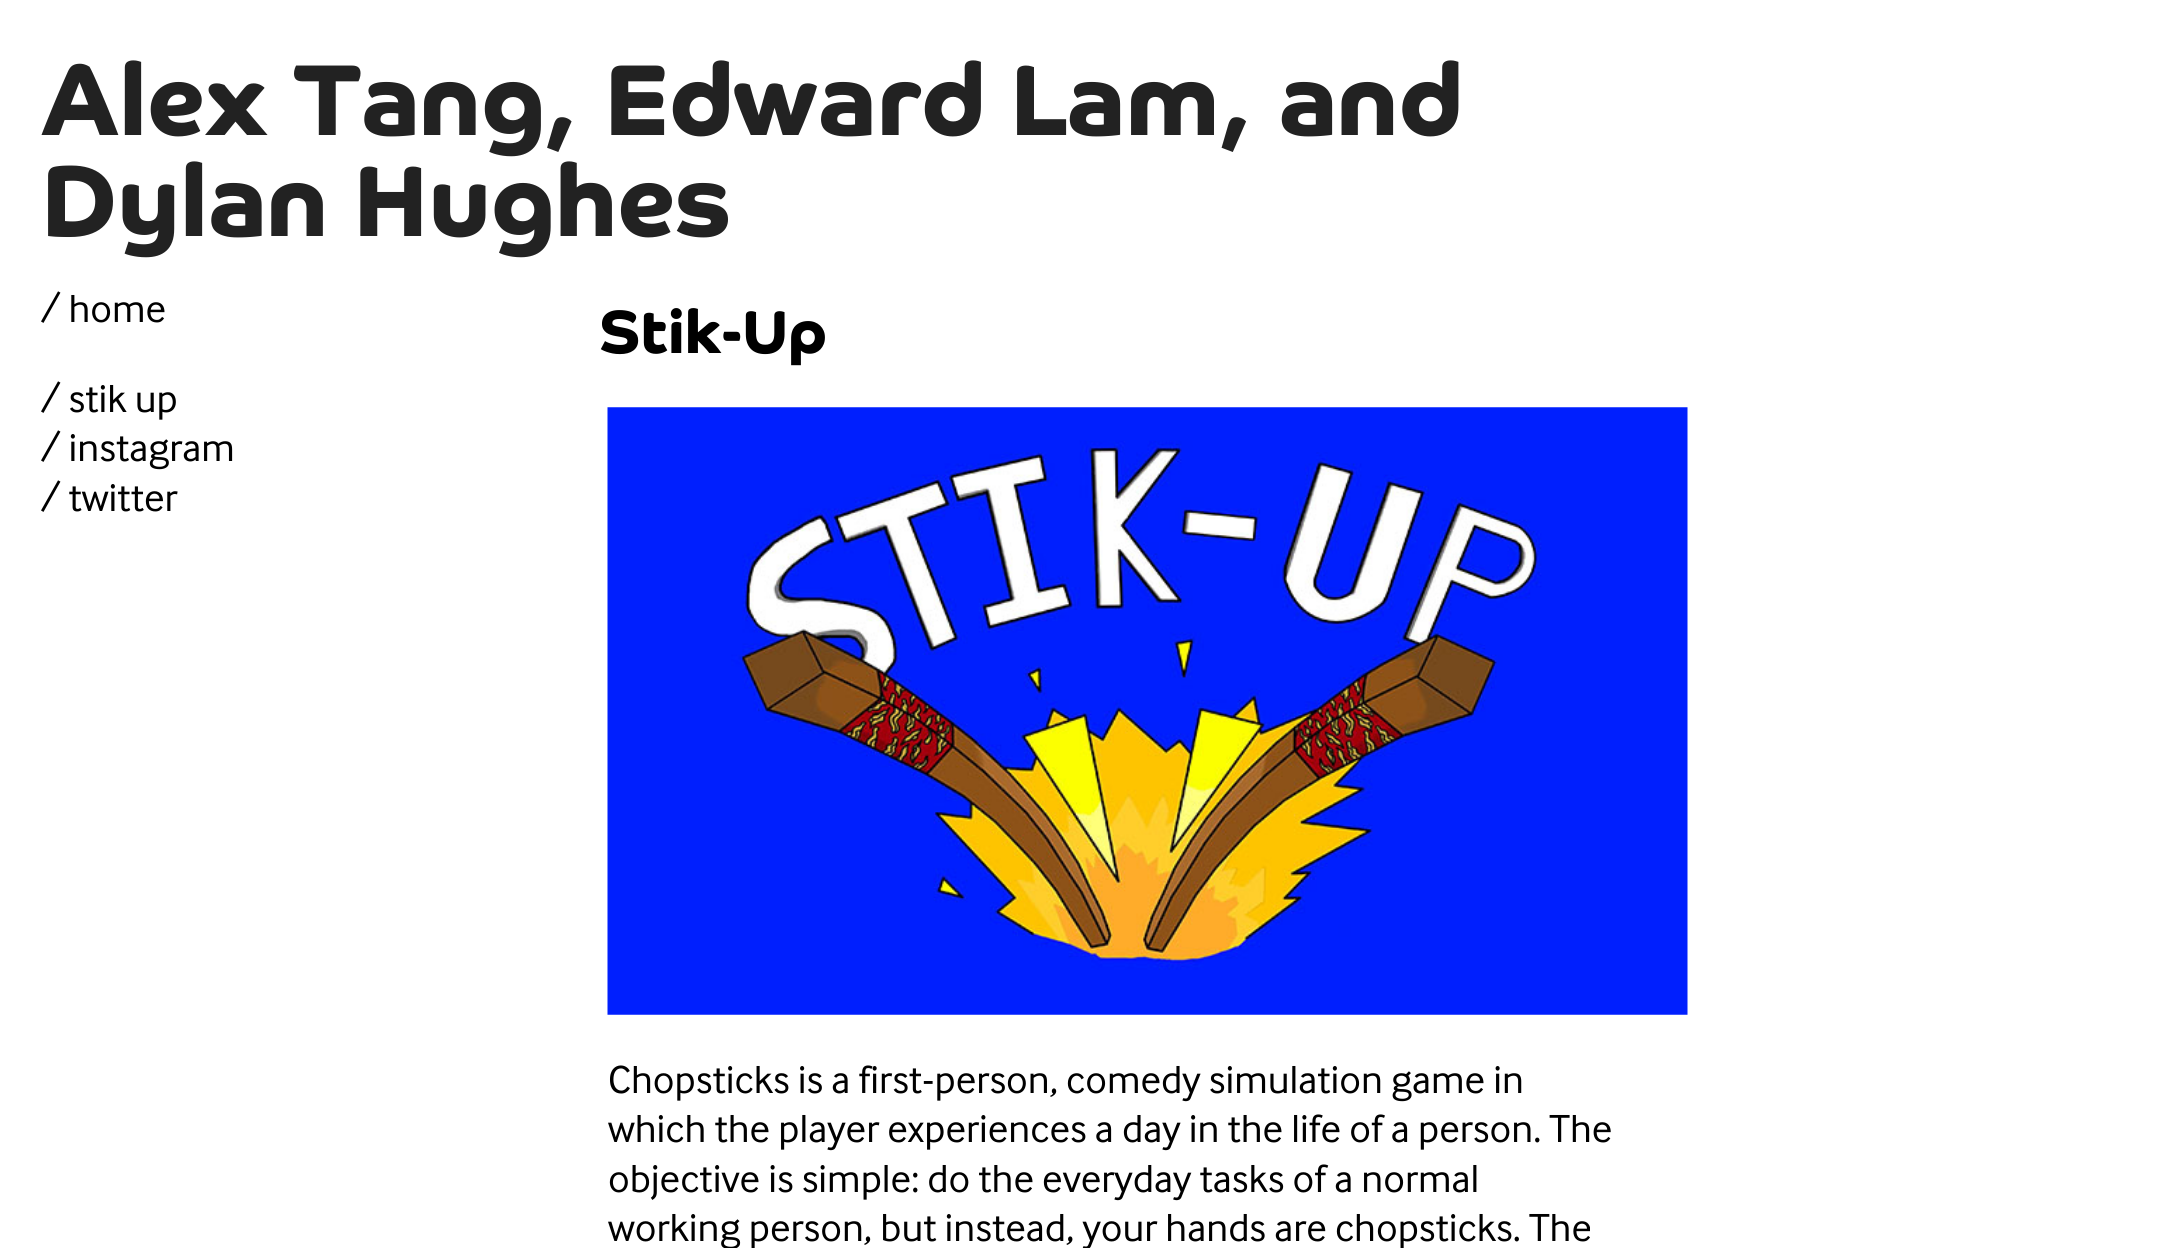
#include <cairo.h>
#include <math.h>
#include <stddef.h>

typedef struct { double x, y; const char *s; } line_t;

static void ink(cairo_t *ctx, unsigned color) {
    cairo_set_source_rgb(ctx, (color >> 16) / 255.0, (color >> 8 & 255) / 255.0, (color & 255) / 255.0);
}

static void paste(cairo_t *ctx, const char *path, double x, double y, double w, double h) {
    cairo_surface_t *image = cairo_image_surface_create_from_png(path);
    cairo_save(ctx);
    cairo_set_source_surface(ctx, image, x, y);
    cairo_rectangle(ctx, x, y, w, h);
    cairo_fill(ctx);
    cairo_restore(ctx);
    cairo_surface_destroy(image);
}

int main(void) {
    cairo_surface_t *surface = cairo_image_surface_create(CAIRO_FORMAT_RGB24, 2175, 1248);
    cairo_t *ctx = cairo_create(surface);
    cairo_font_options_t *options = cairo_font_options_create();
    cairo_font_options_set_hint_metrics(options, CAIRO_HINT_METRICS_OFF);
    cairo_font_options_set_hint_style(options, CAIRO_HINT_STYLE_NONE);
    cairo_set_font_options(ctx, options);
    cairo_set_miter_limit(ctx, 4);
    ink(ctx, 0xFFFFFF);
    cairo_paint(ctx);
    cairo_select_font_face(ctx, "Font", CAIRO_FONT_SLANT_NORMAL, CAIRO_FONT_WEIGHT_BOLD);
    cairo_set_font_size(ctx, 101.25);
    ink(ctx, 0x222222);
    cairo_move_to(ctx, 41, 135);
    cairo_show_text(ctx, "Alex Tang, Edward Lam, and");
    cairo_move_to(ctx, 41, 236);
    cairo_show_text(ctx, "Dylan Hughes");
    cairo_select_font_face(ctx, "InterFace", CAIRO_FONT_SLANT_NORMAL, CAIRO_FONT_WEIGHT_NORMAL);
    cairo_set_font_size(ctx, 40.5);
    ink(ctx, 0x000000);
    {
        static const line_t items[] = {
            {41, 322, "/ home"},
            {41, 412, "/ stik up"},
            {41, 461, "/ instagram"},
            {41, 511, "/ twitter"},
        };
        for (size_t i = 0; i < sizeof items / sizeof *items; i++) {
            cairo_move_to(ctx, items[i].x, items[i].y);
            cairo_show_text(ctx, items[i].s);
        }
    }
    cairo_select_font_face(ctx, "Font", CAIRO_FONT_SLANT_NORMAL, CAIRO_FONT_WEIGHT_BOLD);
    cairo_set_font_size(ctx, 61);
    cairo_move_to(ctx, 599, 353);
    cairo_show_text(ctx, "Stik-Up");
    paste(ctx, "media/1.png", 607, 407, 1081, 608);
    cairo_select_font_face(ctx, "InterFace", CAIRO_FONT_SLANT_NORMAL, CAIRO_FONT_WEIGHT_NORMAL);
    cairo_set_font_size(ctx, 40.5);
    {
        static const line_t items[] = {
            {608, 1093, "Chopsticks is a first-person, comedy simulation game in"},
            {608, 1142, "which the player experiences a day in the life of a person. The"},
            {608, 1192, "objective is simple: do the everyday tasks of a normal"},
            {608, 1241, "working person, but instead, your hands are chopsticks. The"},
        };
        for (size_t i = 0; i < sizeof items / sizeof *items; i++) {
            cairo_move_to(ctx, items[i].x, items[i].y);
            cairo_show_text(ctx, items[i].s);
        }
    }
    cairo_surface_write_to_png(surface, "image.png");
    cairo_font_options_destroy(options);
    cairo_destroy(ctx);
    cairo_surface_destroy(surface);
    return 0;
}
